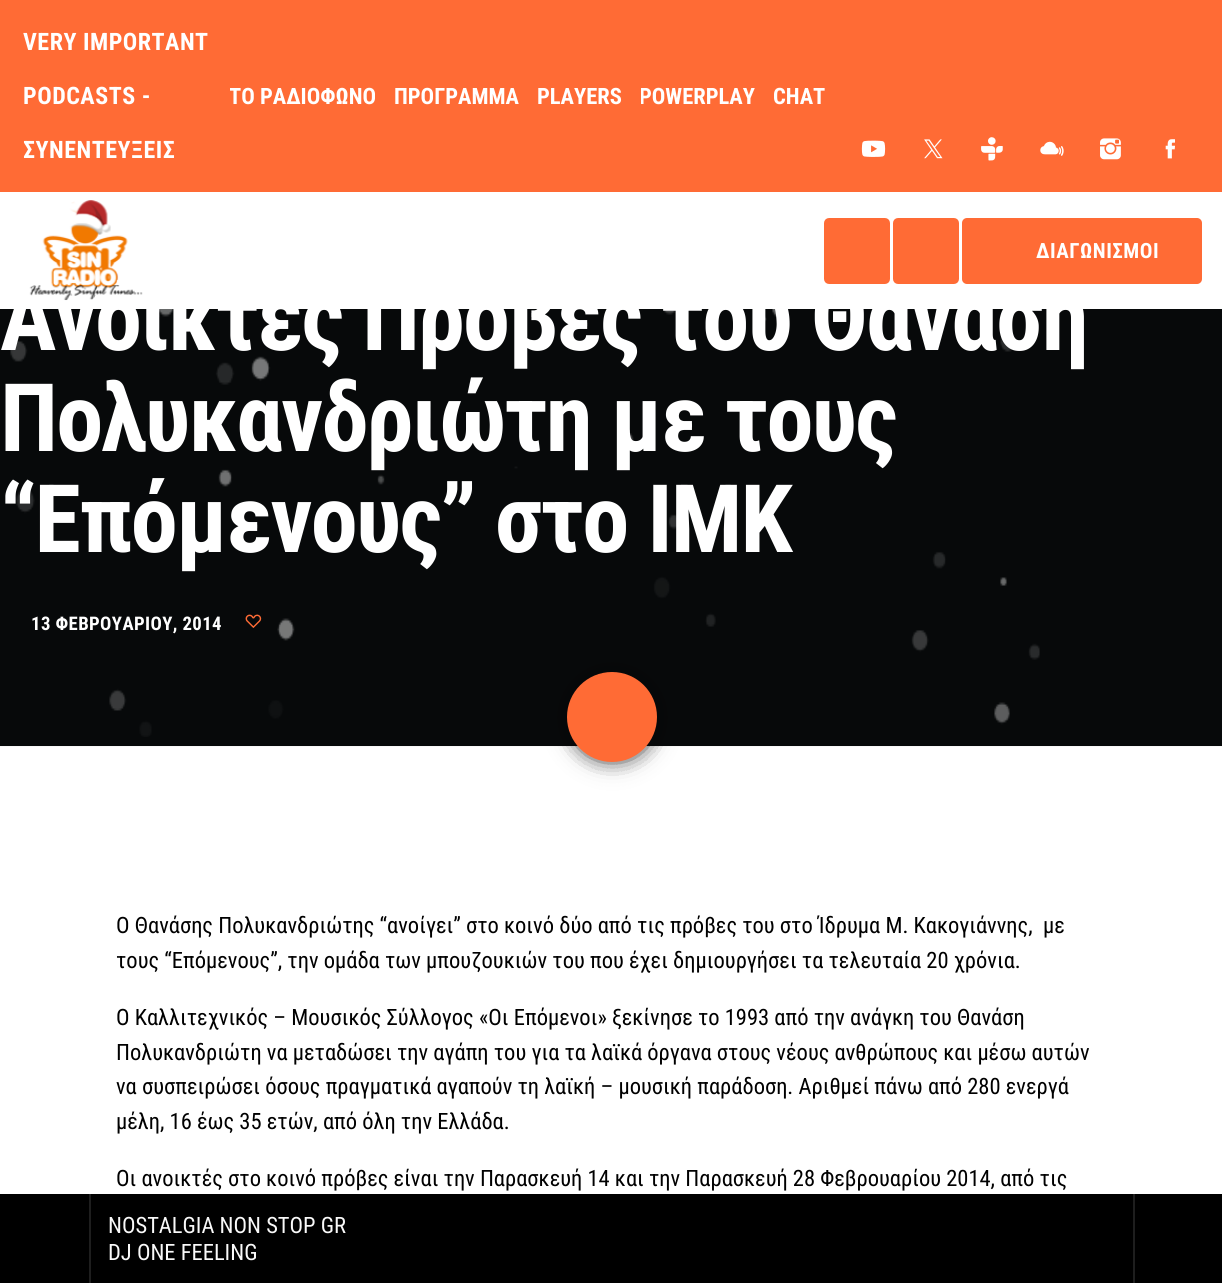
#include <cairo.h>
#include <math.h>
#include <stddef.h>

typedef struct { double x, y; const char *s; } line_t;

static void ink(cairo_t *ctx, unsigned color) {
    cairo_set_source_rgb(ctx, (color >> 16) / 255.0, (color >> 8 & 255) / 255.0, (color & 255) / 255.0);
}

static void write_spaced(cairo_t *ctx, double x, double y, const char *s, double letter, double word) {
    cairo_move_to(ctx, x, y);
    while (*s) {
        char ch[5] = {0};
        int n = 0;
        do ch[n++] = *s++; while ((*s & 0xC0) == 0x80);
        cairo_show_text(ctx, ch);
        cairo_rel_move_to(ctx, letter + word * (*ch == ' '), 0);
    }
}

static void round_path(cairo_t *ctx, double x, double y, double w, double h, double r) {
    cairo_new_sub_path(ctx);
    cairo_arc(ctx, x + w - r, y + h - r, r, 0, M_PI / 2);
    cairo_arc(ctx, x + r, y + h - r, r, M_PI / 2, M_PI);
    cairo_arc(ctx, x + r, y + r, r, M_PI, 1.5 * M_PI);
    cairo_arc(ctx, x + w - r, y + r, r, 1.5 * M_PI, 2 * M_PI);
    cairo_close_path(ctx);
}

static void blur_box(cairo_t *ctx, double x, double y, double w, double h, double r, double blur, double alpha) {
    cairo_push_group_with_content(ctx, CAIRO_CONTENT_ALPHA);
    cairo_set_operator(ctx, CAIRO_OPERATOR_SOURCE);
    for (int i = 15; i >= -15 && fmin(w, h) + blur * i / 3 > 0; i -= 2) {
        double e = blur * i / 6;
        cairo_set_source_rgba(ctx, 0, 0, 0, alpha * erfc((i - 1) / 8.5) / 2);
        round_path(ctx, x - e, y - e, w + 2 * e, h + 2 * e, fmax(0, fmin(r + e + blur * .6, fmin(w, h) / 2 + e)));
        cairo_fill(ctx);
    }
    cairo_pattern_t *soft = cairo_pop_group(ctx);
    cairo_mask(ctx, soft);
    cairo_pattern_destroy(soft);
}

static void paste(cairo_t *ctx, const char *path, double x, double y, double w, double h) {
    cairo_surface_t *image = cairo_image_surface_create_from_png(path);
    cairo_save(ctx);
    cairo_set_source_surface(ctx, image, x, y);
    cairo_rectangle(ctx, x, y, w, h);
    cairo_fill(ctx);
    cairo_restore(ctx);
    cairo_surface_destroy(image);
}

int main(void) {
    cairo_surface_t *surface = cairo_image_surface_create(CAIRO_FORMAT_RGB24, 1222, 1283);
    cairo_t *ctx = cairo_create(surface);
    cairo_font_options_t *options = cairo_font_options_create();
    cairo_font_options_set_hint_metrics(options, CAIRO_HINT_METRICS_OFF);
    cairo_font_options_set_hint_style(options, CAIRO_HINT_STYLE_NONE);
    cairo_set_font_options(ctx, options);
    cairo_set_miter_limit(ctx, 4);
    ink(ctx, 0xF8F8F8);
    cairo_paint(ctx);
    ink(ctx, 0xFFFFFF);
    cairo_rectangle(ctx, 0, 192, 1222, 117);
    cairo_fill(ctx);
    ink(ctx, 0xFF6B35);
    cairo_rectangle(ctx, 0, 0, 1222, 192);
    cairo_fill(ctx);
    cairo_select_font_face(ctx, "Roboto Condensed", CAIRO_FONT_SLANT_NORMAL, CAIRO_FONT_WEIGHT_BOLD);
    cairo_set_font_size(ctx, 24);
    ink(ctx, 0xFFFFFF);
    {
        static const line_t items[] = {
            {23, 50, "VERY IMPORTANT"},
            {23, 104, "PODCASTS -"},
            {23, 158, "ΣΥΝΕΝΤΕΥΞΕΙΣ"},
        };
        for (size_t i = 0; i < sizeof items / sizeof *items; i++) {
            write_spaced(ctx, items[i].x, items[i].y, items[i].s, 0.5, 0);
        }
    }
    cairo_save(ctx);
    cairo_rectangle(ctx, 230, 18, 147, 159);
    cairo_clip(ctx);
    cairo_set_font_size(ctx, 22.5);
    cairo_move_to(ctx, 229, 104);
    cairo_show_text(ctx, "ΤΟ ΡΑΔΙΟΦΩΝΟ");
    cairo_restore(ctx);
    cairo_save(ctx);
    cairo_rectangle(ctx, 395, 18, 124, 159);
    cairo_clip(ctx);
    cairo_set_font_size(ctx, 22.5);
    cairo_move_to(ctx, 394, 104);
    cairo_show_text(ctx, "ΠΡΟΓΡΑΜΜΑ");
    cairo_restore(ctx);
    cairo_set_font_size(ctx, 22.5);
    cairo_move_to(ctx, 537, 104);
    cairo_show_text(ctx, "PLAYERS");
    cairo_save(ctx);
    cairo_rectangle(ctx, 641, 18, 115, 159);
    cairo_clip(ctx);
    cairo_move_to(ctx, 639, 104);
    cairo_show_text(ctx, "POWERPLAY");
    cairo_restore(ctx);
    cairo_move_to(ctx, 773, 104);
    cairo_show_text(ctx, "CHAT");
    paste(ctx, "media/1.png", 861, 140, 25, 17);
    paste(ctx, "media/2.png", 924, 139, 19, 20);
    paste(ctx, "media/3.png", 981, 137, 22, 24);
    paste(ctx, "media/4.png", 1040, 141, 24, 15);
    paste(ctx, "media/5.png", 1100, 138, 21, 22);
    paste(ctx, "media/6.png", 1165, 139, 10, 20);
    ink(ctx, 0x07090A);
    cairo_rectangle(ctx, 0, 309, 1222, 437);
    cairo_fill(ctx);
    cairo_set_font_size(ctx, 94.5);
    ink(ctx, 0xFFFFFF);
    write_spaced(ctx, 0, 350, "Ανοικτές Πρόβες του Θανάση", -1.9, 0);
    paste(ctx, "media/7.png", 29, 200, 114, 101);
    ink(ctx, 0xFF6B35);
    round_path(ctx, 825.5, 219.5, 63, 63, 3.5);
    cairo_fill_preserve(ctx);
    cairo_set_line_width(ctx, 3);
    cairo_stroke(ctx);
    round_path(ctx, 894.5, 219.5, 63, 63, 3.5);
    cairo_fill_preserve(ctx);
    cairo_stroke(ctx);
    round_path(ctx, 962, 218, 240, 66, 5);
    cairo_fill(ctx);
    cairo_set_font_size(ctx, 21);
    ink(ctx, 0xFFFFFF);
    write_spaced(ctx, 1036, 258, "ΔΙΑΓΩΝΙΣΜΟΙ", 0.5, 0);
    ink(ctx, 0x000000);
    cairo_rectangle(ctx, 0, 1194, 1222, 89);
    cairo_fill(ctx);
    ink(ctx, 0x1E1E1E);
    cairo_rectangle(ctx, 89, 1194, 2, 89);
    cairo_fill(ctx);
    cairo_select_font_face(ctx, "Roboto Condensed", CAIRO_FONT_SLANT_NORMAL, CAIRO_FONT_WEIGHT_NORMAL);
    cairo_set_font_size(ctx, 22.5);
    ink(ctx, 0xF9F9F9);
    cairo_move_to(ctx, 108, 1233);
    cairo_show_text(ctx, "NOSTALGIA NON STOP GR");
    cairo_move_to(ctx, 108, 1260);
    cairo_show_text(ctx, "DJ ONE FEELING");
    ink(ctx, 0x1E1E1E);
    cairo_rectangle(ctx, 1133, 1194, 2, 89);
    cairo_fill(ctx);
    cairo_select_font_face(ctx, "Roboto Condensed", CAIRO_FONT_SLANT_NORMAL, CAIRO_FONT_WEIGHT_BOLD);
    cairo_set_font_size(ctx, 94.5);
    ink(ctx, 0xFFFFFF);
    write_spaced(ctx, 0, 451, "Πολυκανδριώτη με τους", -1.9, 0);
    write_spaced(ctx, 0, 552, "“Επόμενους” στο ΙΜΚ", -1.9, 0);
    cairo_set_font_size(ctx, 18.75);
    write_spaced(ctx, 31, 630, "13 ΦΕΒΡΟΥΑΡΙΟΥ, 2014", 0.4, 0);
    paste(ctx, "media/8.png", 245, 614, 17, 14);
    paste(ctx, "media/9.png", 10, 309, 1030, 428);
    cairo_rectangle(ctx, 0, 747, 1222, 447);
    cairo_fill(ctx);
    ink(ctx, 0x000000);
    blur_box(ctx, 563, 668, 99, 99, 49.5, 11, 0.2);
    blur_box(ctx, 578, 683, 69, 69, 34.5, 11, 0.2);
    blur_box(ctx, 578, 683, 69, 69, 34.5, 11, 0.2);
    blur_box(ctx, 578, 683, 69, 69, 34.5, 11, 0.2);
    blur_box(ctx, 578, 683, 69, 69, 34.5, 11, 0.2);
    blur_box(ctx, 578, 683, 69, 69, 34.5, 11, 0.2);
    blur_box(ctx, 578, 683, 69, 69, 34.5, 11, 0.2);
    blur_box(ctx, 578, 683, 69, 69, 34.5, 11, 0.2);
    blur_box(ctx, 578, 683, 69, 69, 34.5, 11, 0.2);
    blur_box(ctx, 578, 683, 69, 69, 34.5, 11, 0.2);
    ink(ctx, 0xFF6B35);
    cairo_arc(ctx, 612, 717, 45, 0, 2 * M_PI);
    cairo_fill(ctx);
    cairo_select_font_face(ctx, "Roboto Condensed", CAIRO_FONT_SLANT_NORMAL, CAIRO_FONT_WEIGHT_NORMAL);
    cairo_set_font_size(ctx, 22.5);
    ink(ctx, 0x000000);
    {
        static const line_t items[] = {
            {116, 933, "Ο Θανάσης Πολυκανδριώτης “ανοίγει” στο κοινό δύο από τις πρόβες του στο Ίδρυμα Μ. Κακογιάννης,  με"},
            {116, 968, "τους “Επόμενους”, την ομάδα των μπουζουκιών του που έχει δημιουργήσει τα τελευταία 20 χρόνια."},
            {116, 1025, "Ο Καλλιτεχνικός – Μουσικός Σύλλογος «Οι Επόμενοι» ξεκίνησε το 1993 από την ανάγκη του Θανάση"},
            {116, 1060, "Πολυκανδριώτη να μεταδώσει την αγάπη του για τα λαϊκά όργανα στους νέους ανθρώπους και μέσω αυτών"},
            {116, 1094, "να συσπειρώσει όσους πραγματικά αγαπούν τη λαϊκή – μουσική παράδοση. Αριθμεί πάνω από 280 ενεργά"},
            {116, 1129, "μέλη, 16 έως 35 ετών, από όλη την Ελλάδα."},
            {116, 1186, "Οι ανοικτές στο κοινό πρόβες είναι την Παρασκευή 14 και την Παρασκευή 28 Φεβρουαρίου 2014, από τις"},
        };
        for (size_t i = 0; i < sizeof items / sizeof *items; i++) {
            cairo_move_to(ctx, items[i].x, items[i].y);
            cairo_show_text(ctx, items[i].s);
        }
    }
    cairo_surface_write_to_png(surface, "image.png");
    cairo_font_options_destroy(options);
    cairo_destroy(ctx);
    cairo_surface_destroy(surface);
    return 0;
}
